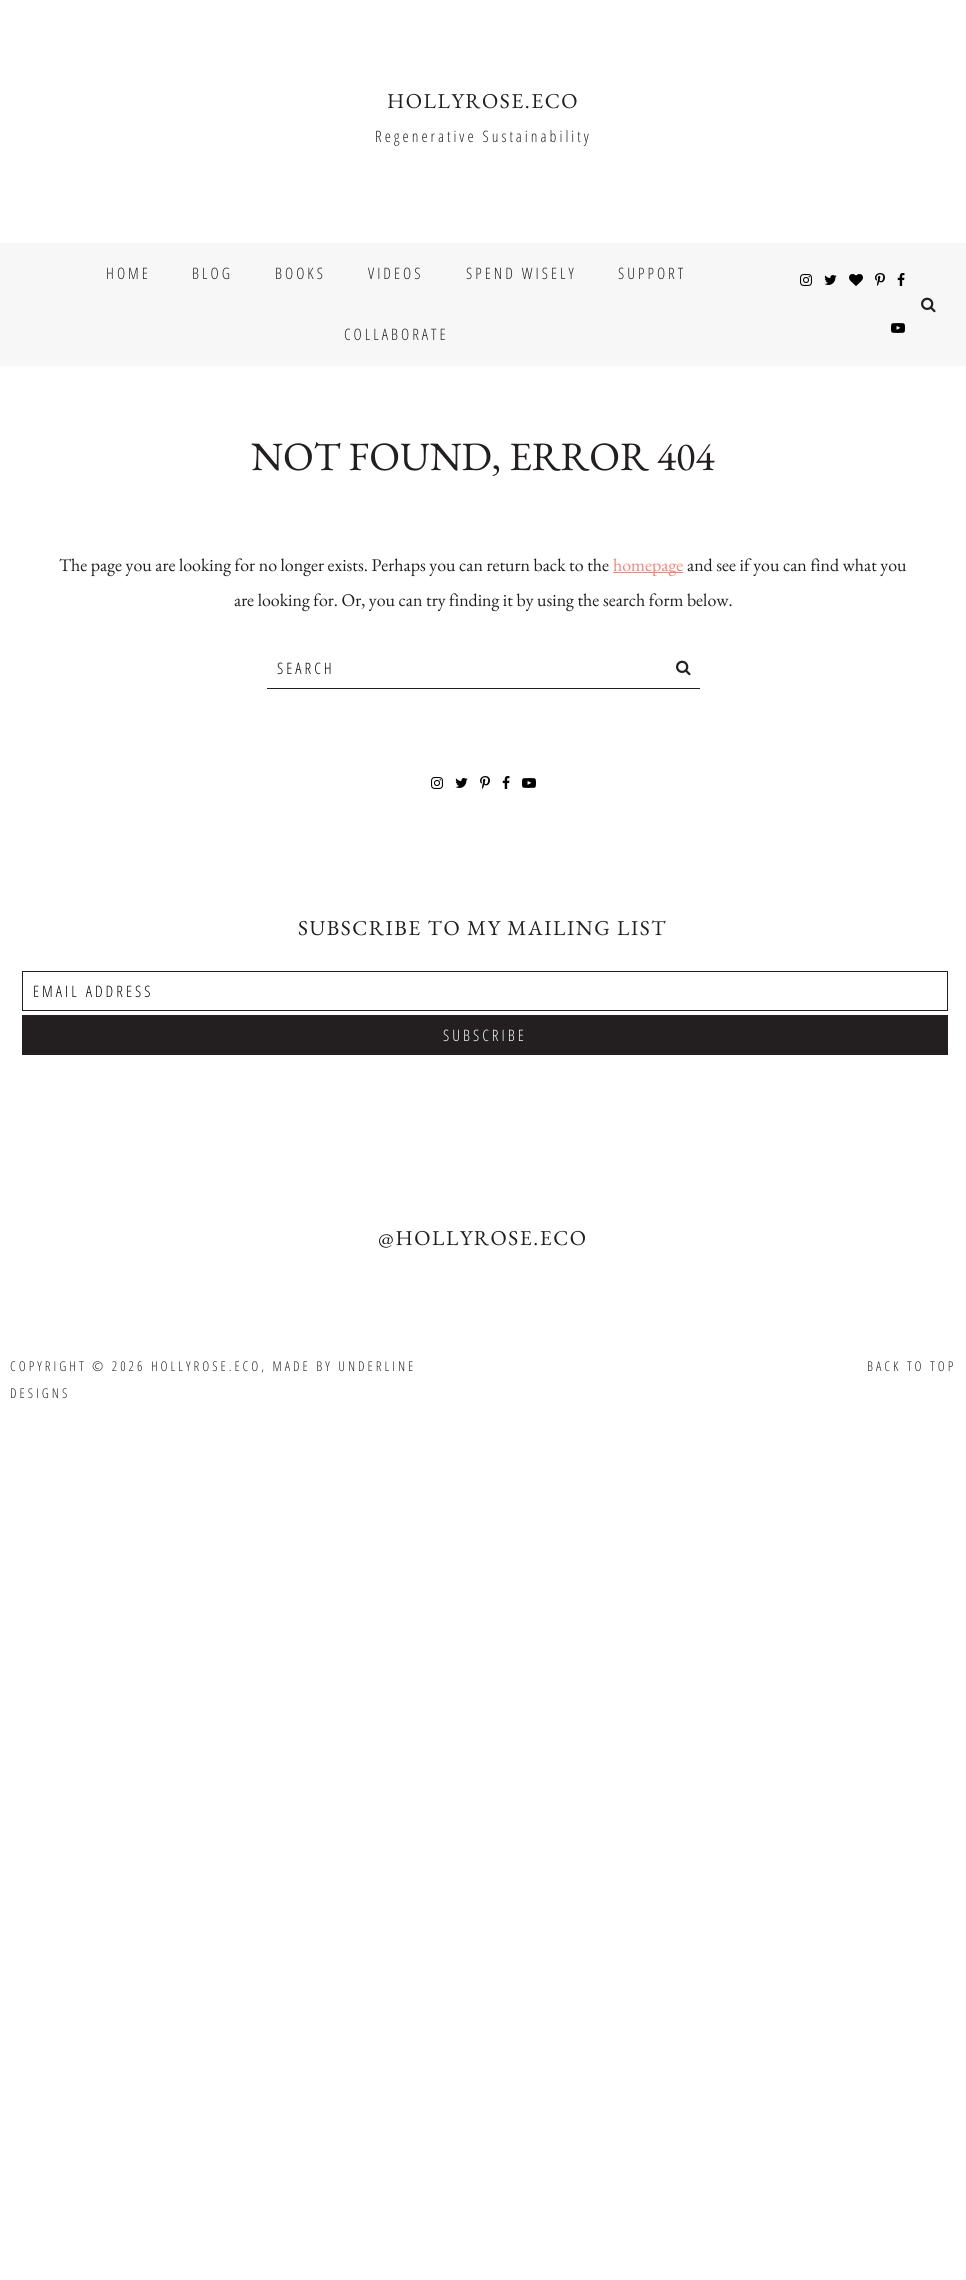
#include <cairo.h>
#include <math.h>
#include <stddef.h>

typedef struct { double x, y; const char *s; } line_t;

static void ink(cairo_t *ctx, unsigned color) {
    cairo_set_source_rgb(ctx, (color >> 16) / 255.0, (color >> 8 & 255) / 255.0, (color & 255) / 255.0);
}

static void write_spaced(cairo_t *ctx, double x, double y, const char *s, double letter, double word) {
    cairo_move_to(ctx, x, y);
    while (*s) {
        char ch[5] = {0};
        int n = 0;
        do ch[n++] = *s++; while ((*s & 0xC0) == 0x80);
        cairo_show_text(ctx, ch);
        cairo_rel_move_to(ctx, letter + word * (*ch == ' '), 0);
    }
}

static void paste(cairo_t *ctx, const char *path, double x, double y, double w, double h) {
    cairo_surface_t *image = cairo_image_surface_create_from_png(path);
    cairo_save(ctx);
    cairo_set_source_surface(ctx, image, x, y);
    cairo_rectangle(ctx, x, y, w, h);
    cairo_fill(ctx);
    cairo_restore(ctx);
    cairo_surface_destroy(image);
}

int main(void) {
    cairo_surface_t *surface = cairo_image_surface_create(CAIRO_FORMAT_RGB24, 966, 2280);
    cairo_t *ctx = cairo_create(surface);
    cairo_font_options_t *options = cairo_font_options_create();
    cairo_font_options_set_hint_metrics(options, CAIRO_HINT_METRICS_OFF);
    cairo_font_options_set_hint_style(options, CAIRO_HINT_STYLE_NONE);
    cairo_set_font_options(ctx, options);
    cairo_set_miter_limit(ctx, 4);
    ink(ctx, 0xFFFFFF);
    cairo_paint(ctx);
    cairo_select_font_face(ctx, "EB Garamond", CAIRO_FONT_SLANT_NORMAL, CAIRO_FONT_WEIGHT_NORMAL);
    cairo_set_font_size(ctx, 21.25);
    ink(ctx, 0x231F20);
    write_spaced(ctx, 387, 108, "HOLLYROSE.ECO", 1.55, 0);
    cairo_select_font_face(ctx, "Open Sans Condensed Light", CAIRO_FONT_SLANT_NORMAL, CAIRO_FONT_WEIGHT_NORMAL);
    cairo_set_font_size(ctx, 15.75);
    write_spaced(ctx, 375, 142, "Regenerative Sustainability", 3, 0);
    ink(ctx, 0xF7F7F7);
    cairo_rectangle(ctx, 0, 243, 966, 123);
    cairo_fill(ctx);
    ink(ctx, 0x231F20);
    {
        static const line_t items[] = {
            {106, 279, "HOME"},
            {192, 279, "BLOG"},
            {275, 279, "BOOKS"},
            {368, 279, "VIDEOS"},
            {466, 279, "SPEND WISELY"},
            {618, 279, "SUPPORT"},
            {344, 340, "COLLABORATE"},
        };
        for (size_t i = 0; i < sizeof items / sizeof *items; i++) {
            write_spaced(ctx, items[i].x, items[i].y, items[i].s, 3, 0);
        }
    }
    paste(ctx, "media/1.png", 800, 274, 12, 12);
    paste(ctx, "media/2.png", 824, 275, 13, 10);
    paste(ctx, "media/3.png", 849, 274, 14, 12);
    paste(ctx, "media/4.png", 875, 273, 10, 13);
    paste(ctx, "media/5.png", 897, 273, 8, 13);
    paste(ctx, "media/6.png", 891, 323, 14, 10);
    paste(ctx, "media/7.png", 921, 297, 15, 16);
    cairo_select_font_face(ctx, "EB Garamond", CAIRO_FONT_SLANT_NORMAL, CAIRO_FONT_WEIGHT_NORMAL);
    cairo_set_font_size(ctx, 40.25);
    cairo_move_to(ctx, 251, 470);
    cairo_show_text(ctx, "NOT FOUND, ERROR 404");
    cairo_set_font_size(ctx, 17.9);
    cairo_move_to(ctx, 59, 571);
    cairo_show_text(ctx, "The page you are looking for no longer exists. Perhaps you can return back to the");
    ink(ctx, 0xF88379);
    cairo_rectangle(ctx, 613, 572, 70, 1);
    cairo_fill(ctx);
    cairo_move_to(ctx, 613, 571);
    cairo_show_text(ctx, "homepage");
    ink(ctx, 0x231F20);
    cairo_move_to(ctx, 687, 571);
    cairo_show_text(ctx, "and see if you can find what you");
    cairo_move_to(ctx, 234, 606);
    cairo_show_text(ctx, "are looking for. Or, you can try finding it by using the search form below.");
    cairo_rectangle(ctx, 267, 688, 433, 1);
    cairo_fill(ctx);
    cairo_select_font_face(ctx, "Open Sans Condensed Light", CAIRO_FONT_SLANT_NORMAL, CAIRO_FONT_WEIGHT_NORMAL);
    cairo_set_font_size(ctx, 15.75);
    ink(ctx, 0x000000);
    write_spaced(ctx, 277, 674, "SEARCH", 3, 0);
    paste(ctx, "media/8.png", 676, 660, 15, 16);
    paste(ctx, "media/9.png", 431, 777, 12, 12);
    paste(ctx, "media/10.png", 455, 778, 13, 10);
    paste(ctx, "media/11.png", 480, 776, 10, 13);
    paste(ctx, "media/12.png", 502, 776, 8, 13);
    paste(ctx, "media/13.png", 522, 778, 14, 10);
    cairo_select_font_face(ctx, "EB Garamond", CAIRO_FONT_SLANT_NORMAL, CAIRO_FONT_WEIGHT_NORMAL);
    cairo_set_font_size(ctx, 21.25);
    ink(ctx, 0x231F20);
    write_spaced(ctx, 298, 935, "SUBSCRIBE TO MY MAILING LIST", 1.55, 0);
    cairo_rectangle(ctx, 22.5, 971.5, 925, 39);
    cairo_set_line_width(ctx, 1);
    cairo_stroke(ctx);
    cairo_select_font_face(ctx, "Open Sans Condensed Light", CAIRO_FONT_SLANT_NORMAL, CAIRO_FONT_WEIGHT_NORMAL);
    cairo_set_font_size(ctx, 15.75);
    ink(ctx, 0x000000);
    write_spaced(ctx, 33, 997, "EMAIL ADDRESS", 3, 0);
    ink(ctx, 0x231F20);
    cairo_rectangle(ctx, 22, 1015, 926, 40);
    cairo_fill(ctx);
    ink(ctx, 0xFFFFFF);
    write_spaced(ctx, 443, 1041, "SUBSCRIBE", 3, 0);
    cairo_select_font_face(ctx, "EB Garamond", CAIRO_FONT_SLANT_NORMAL, CAIRO_FONT_WEIGHT_NORMAL);
    cairo_set_font_size(ctx, 21.25);
    ink(ctx, 0x231F20);
    write_spaced(ctx, 378, 1245, "@HOLLYROSE.ECO", 1.55, 0);
    cairo_select_font_face(ctx, "Open Sans Condensed Light", CAIRO_FONT_SLANT_NORMAL, CAIRO_FONT_WEIGHT_NORMAL);
    cairo_set_font_size(ctx, 13.45);
    {
        static const line_t items[] = {
            {10, 1371, "COPYRIGHT © 2026 HOLLYROSE.ECO, MADE BY UNDERLINE"},
            {10, 1398, "DESIGNS"},
            {867, 1371, "BACK TO TOP"},
        };
        for (size_t i = 0; i < sizeof items / sizeof *items; i++) {
            write_spaced(ctx, items[i].x, items[i].y, items[i].s, 3, 0);
        }
    }
    cairo_surface_write_to_png(surface, "image.png");
    cairo_font_options_destroy(options);
    cairo_destroy(ctx);
    cairo_surface_destroy(surface);
    return 0;
}
